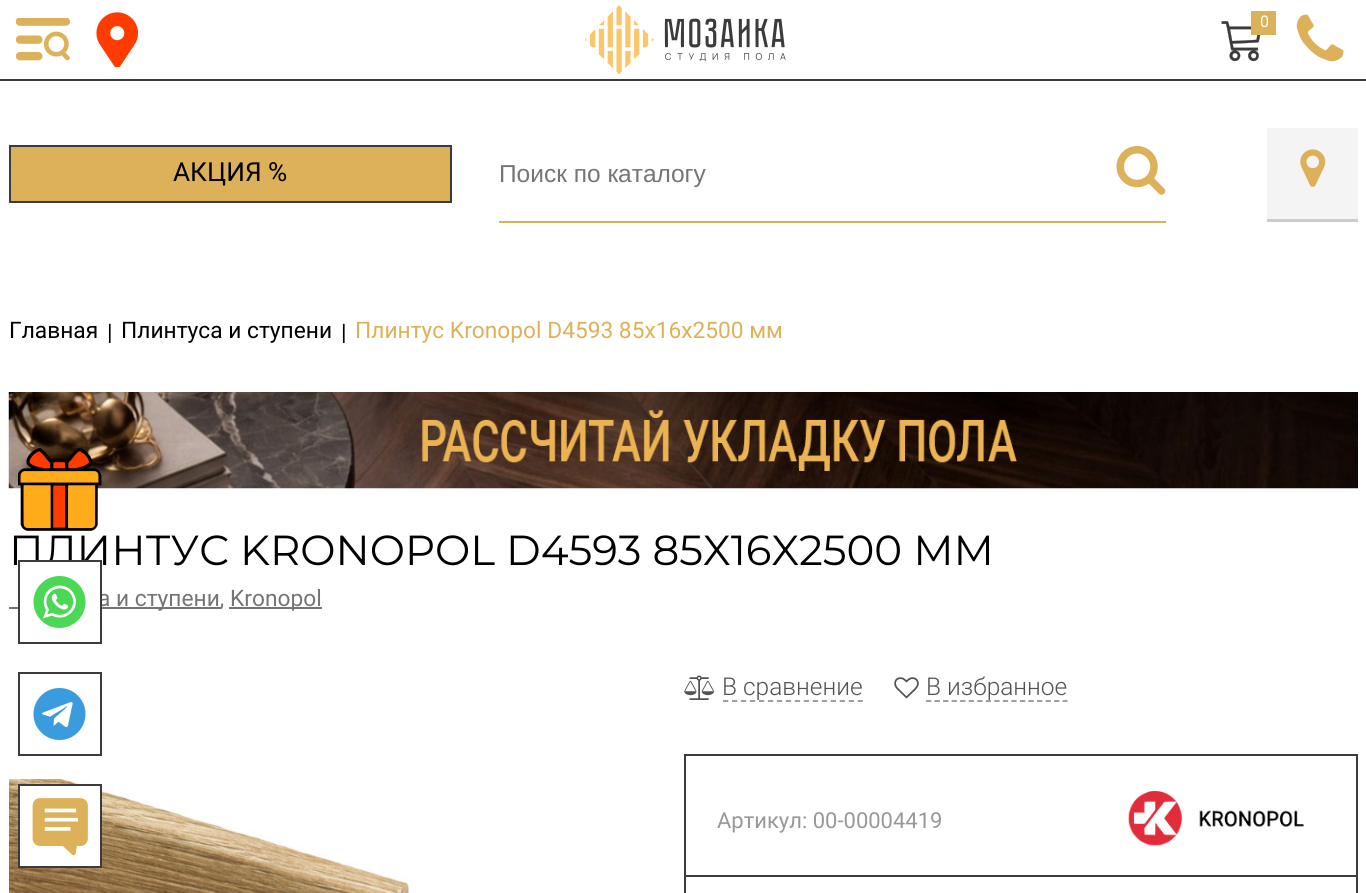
#include <cairo.h>
#include <math.h>
#include <stddef.h>

typedef struct { double x, y; const char *s; } line_t;

static void ink(cairo_t *ctx, unsigned color) {
    cairo_set_source_rgb(ctx, (color >> 16) / 255.0, (color >> 8 & 255) / 255.0, (color & 255) / 255.0);
}

static void paste(cairo_t *ctx, const char *path, double x, double y, double w, double h) {
    cairo_surface_t *image = cairo_image_surface_create_from_png(path);
    cairo_save(ctx);
    cairo_set_source_surface(ctx, image, x, y);
    cairo_rectangle(ctx, x, y, w, h);
    cairo_fill(ctx);
    cairo_restore(ctx);
    cairo_surface_destroy(image);
}

int main(void) {
    cairo_surface_t *surface = cairo_image_surface_create(CAIRO_FORMAT_RGB24, 1366, 893);
    cairo_t *ctx = cairo_create(surface);
    cairo_font_options_t *options = cairo_font_options_create();
    cairo_font_options_set_hint_metrics(options, CAIRO_HINT_METRICS_OFF);
    cairo_font_options_set_hint_style(options, CAIRO_HINT_STYLE_NONE);
    cairo_set_font_options(ctx, options);
    cairo_set_miter_limit(ctx, 4);
    ink(ctx, 0xFFFFFF);
    cairo_paint(ctx);
    ink(ctx, 0x3B3B3B);
    cairo_rectangle(ctx, 0, 79, 1366, 2);
    cairo_fill(ctx);
    paste(ctx, "media/1.png", 16, 18, 54, 43);
    paste(ctx, "media/2.png", 96, 12, 42, 55);
    paste(ctx, "media/3.png", 585, 5, 201, 69);
    paste(ctx, "media/4.png", 1221, 21, 40, 41);
    ink(ctx, 0xDDB159);
    cairo_rectangle(ctx, 1251, 11, 25, 24);
    cairo_fill(ctx);
    cairo_select_font_face(ctx, "Roboto", CAIRO_FONT_SLANT_NORMAL, CAIRO_FONT_WEIGHT_NORMAL);
    cairo_set_font_size(ctx, 16);
    ink(ctx, 0xFFFFFF);
    cairo_move_to(ctx, 1260, 27);
    cairo_show_text(ctx, "0");
    paste(ctx, "media/5.png", 1296, 14, 48, 48);
    ink(ctx, 0xDDB159);
    cairo_rectangle(ctx, 10, 146, 441, 56);
    cairo_fill_preserve(ctx);
    ink(ctx, 0x3B3B3B);
    cairo_stroke(ctx);
    cairo_set_font_size(ctx, 26.25);
    ink(ctx, 0x000000);
    cairo_move_to(ctx, 173, 181);
    cairo_show_text(ctx, "АКЦИЯ %");
    ink(ctx, 0xDDB159);
    cairo_rectangle(ctx, 499, 221, 667, 2);
    cairo_fill(ctx);
    cairo_select_font_face(ctx, "Liberation Sans", CAIRO_FONT_SLANT_NORMAL, CAIRO_FONT_WEIGHT_NORMAL);
    cairo_set_font_size(ctx, 24.5);
    ink(ctx, 0x757575);
    cairo_move_to(ctx, 499, 182);
    cairo_show_text(ctx, "Поиск по каталогу");
    paste(ctx, "media/6.png", 1116, 146, 50, 49);
    ink(ctx, 0xCCCCCC);
    cairo_rectangle(ctx, 1267, 219, 91, 3);
    cairo_fill(ctx);
    ink(ctx, 0xF4F4F4);
    cairo_rectangle(ctx, 1267, 128, 91, 91);
    cairo_fill(ctx);
    paste(ctx, "media/7.png", 1300, 149, 26, 38);
    cairo_select_font_face(ctx, "Roboto", CAIRO_FONT_SLANT_NORMAL, CAIRO_FONT_WEIGHT_NORMAL);
    cairo_set_font_size(ctx, 22.75);
    ink(ctx, 0x000000);
    {
        static const line_t items[] = {
            {9, 338, "Главная"},
            {107, 340, "|"},
            {121, 338, "Плинтуса и ступени"},
            {341, 340, "|"},
        };
        for (size_t i = 0; i < sizeof items / sizeof *items; i++) {
            cairo_move_to(ctx, items[i].x, items[i].y);
            cairo_show_text(ctx, items[i].s);
        }
    }
    ink(ctx, 0xDDB159);
    cairo_move_to(ctx, 355, 338);
    cairo_show_text(ctx, "Плинтус Kronopol D4593 85x16x2500 мм");
    paste(ctx, "media/8.png", 8, 392, 1350, 97);
    cairo_select_font_face(ctx, "Montserrat Thin", CAIRO_FONT_SLANT_NORMAL, CAIRO_FONT_WEIGHT_NORMAL);
    cairo_set_font_size(ctx, 42);
    ink(ctx, 0x000000);
    cairo_move_to(ctx, 9, 565);
    cairo_show_text(ctx, "ПЛИНТУС KRONOPOL D4593 85X16X2500 ММ");
    ink(ctx, 0x737373);
    cairo_rectangle(ctx, 9, 607, 212, 2);
    cairo_fill(ctx);
    cairo_select_font_face(ctx, "Roboto", CAIRO_FONT_SLANT_NORMAL, CAIRO_FONT_WEIGHT_NORMAL);
    cairo_set_font_size(ctx, 22.75);
    ink(ctx, 0x757575);
    cairo_move_to(ctx, 98, 606);
    cairo_show_text(ctx, "а и ступени,");
    ink(ctx, 0x737373);
    cairo_rectangle(ctx, 229, 607, 93, 2);
    cairo_fill(ctx);
    ink(ctx, 0x757575);
    cairo_move_to(ctx, 230, 606);
    cairo_show_text(ctx, "Kronopol");
    paste(ctx, "media/9.png", 9, 779, 402, 114);
    paste(ctx, "media/10.png", 684, 675, 30, 25);
    cairo_new_path(ctx);
    cairo_move_to(ctx, 723, 701);
    cairo_line_to(ctx, 863, 701);
    ink(ctx, 0x979494);
    cairo_set_line_width(ctx, 1.8);
    cairo_set_dash(ctx, (double[]){5.25, 3.73}, 2, 0);
    cairo_stroke(ctx);
    cairo_select_font_face(ctx, "Roboto Light", CAIRO_FONT_SLANT_NORMAL, CAIRO_FONT_WEIGHT_NORMAL);
    cairo_set_font_size(ctx, 24.5);
    ink(ctx, 0x525252);
    cairo_move_to(ctx, 722, 695);
    cairo_show_text(ctx, "В сравнение");
    paste(ctx, "media/11.png", 894, 677, 25, 22);
    cairo_new_path(ctx);
    cairo_move_to(ctx, 926, 701);
    cairo_line_to(ctx, 1067.5, 701);
    ink(ctx, 0x979494);
    cairo_set_dash(ctx, (double[]){5.25, 3.29}, 2, 0);
    cairo_stroke(ctx);
    ink(ctx, 0x525252);
    cairo_move_to(ctx, 926, 695);
    cairo_show_text(ctx, "В избранное");
    cairo_rectangle(ctx, 685, 755, 672, 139);
    ink(ctx, 0x3B3B3B);
    cairo_set_line_width(ctx, 2);
    cairo_set_dash(ctx, NULL, 0, 0);
    cairo_stroke(ctx);
    cairo_rectangle(ctx, 686, 875, 670, 2);
    cairo_fill(ctx);
    cairo_select_font_face(ctx, "Roboto", CAIRO_FONT_SLANT_NORMAL, CAIRO_FONT_WEIGHT_NORMAL);
    cairo_set_font_size(ctx, 22);
    ink(ctx, 0x989898);
    cairo_move_to(ctx, 717, 828);
    cairo_show_text(ctx, "Артикул: 00-00004419");
    paste(ctx, "media/12.png", 1128, 791, 176, 55);
    paste(ctx, "media/13.png", 18, 448, 84, 83);
    ink(ctx, 0xFFFFFF);
    cairo_rectangle(ctx, 20, 562, 80, 47);
    cairo_fill(ctx);
    paste(ctx, "media/14.png", 33, 576, 53, 52);
    cairo_rectangle(ctx, 19, 561, 82, 82);
    ink(ctx, 0x3B3B3B);
    cairo_stroke(ctx);
    paste(ctx, "media/15.png", 33, 688, 53, 52);
    cairo_rectangle(ctx, 19, 673, 82, 82);
    cairo_stroke(ctx);
    ink(ctx, 0xFFFFFF);
    cairo_rectangle(ctx, 20, 786, 80, 80);
    cairo_fill(ctx);
    paste(ctx, "media/16.png", 32, 798, 56, 58);
    cairo_rectangle(ctx, 19, 785, 82, 82);
    ink(ctx, 0x3B3B3B);
    cairo_stroke(ctx);
    cairo_surface_write_to_png(surface, "image.png");
    cairo_font_options_destroy(options);
    cairo_destroy(ctx);
    cairo_surface_destroy(surface);
    return 0;
}
